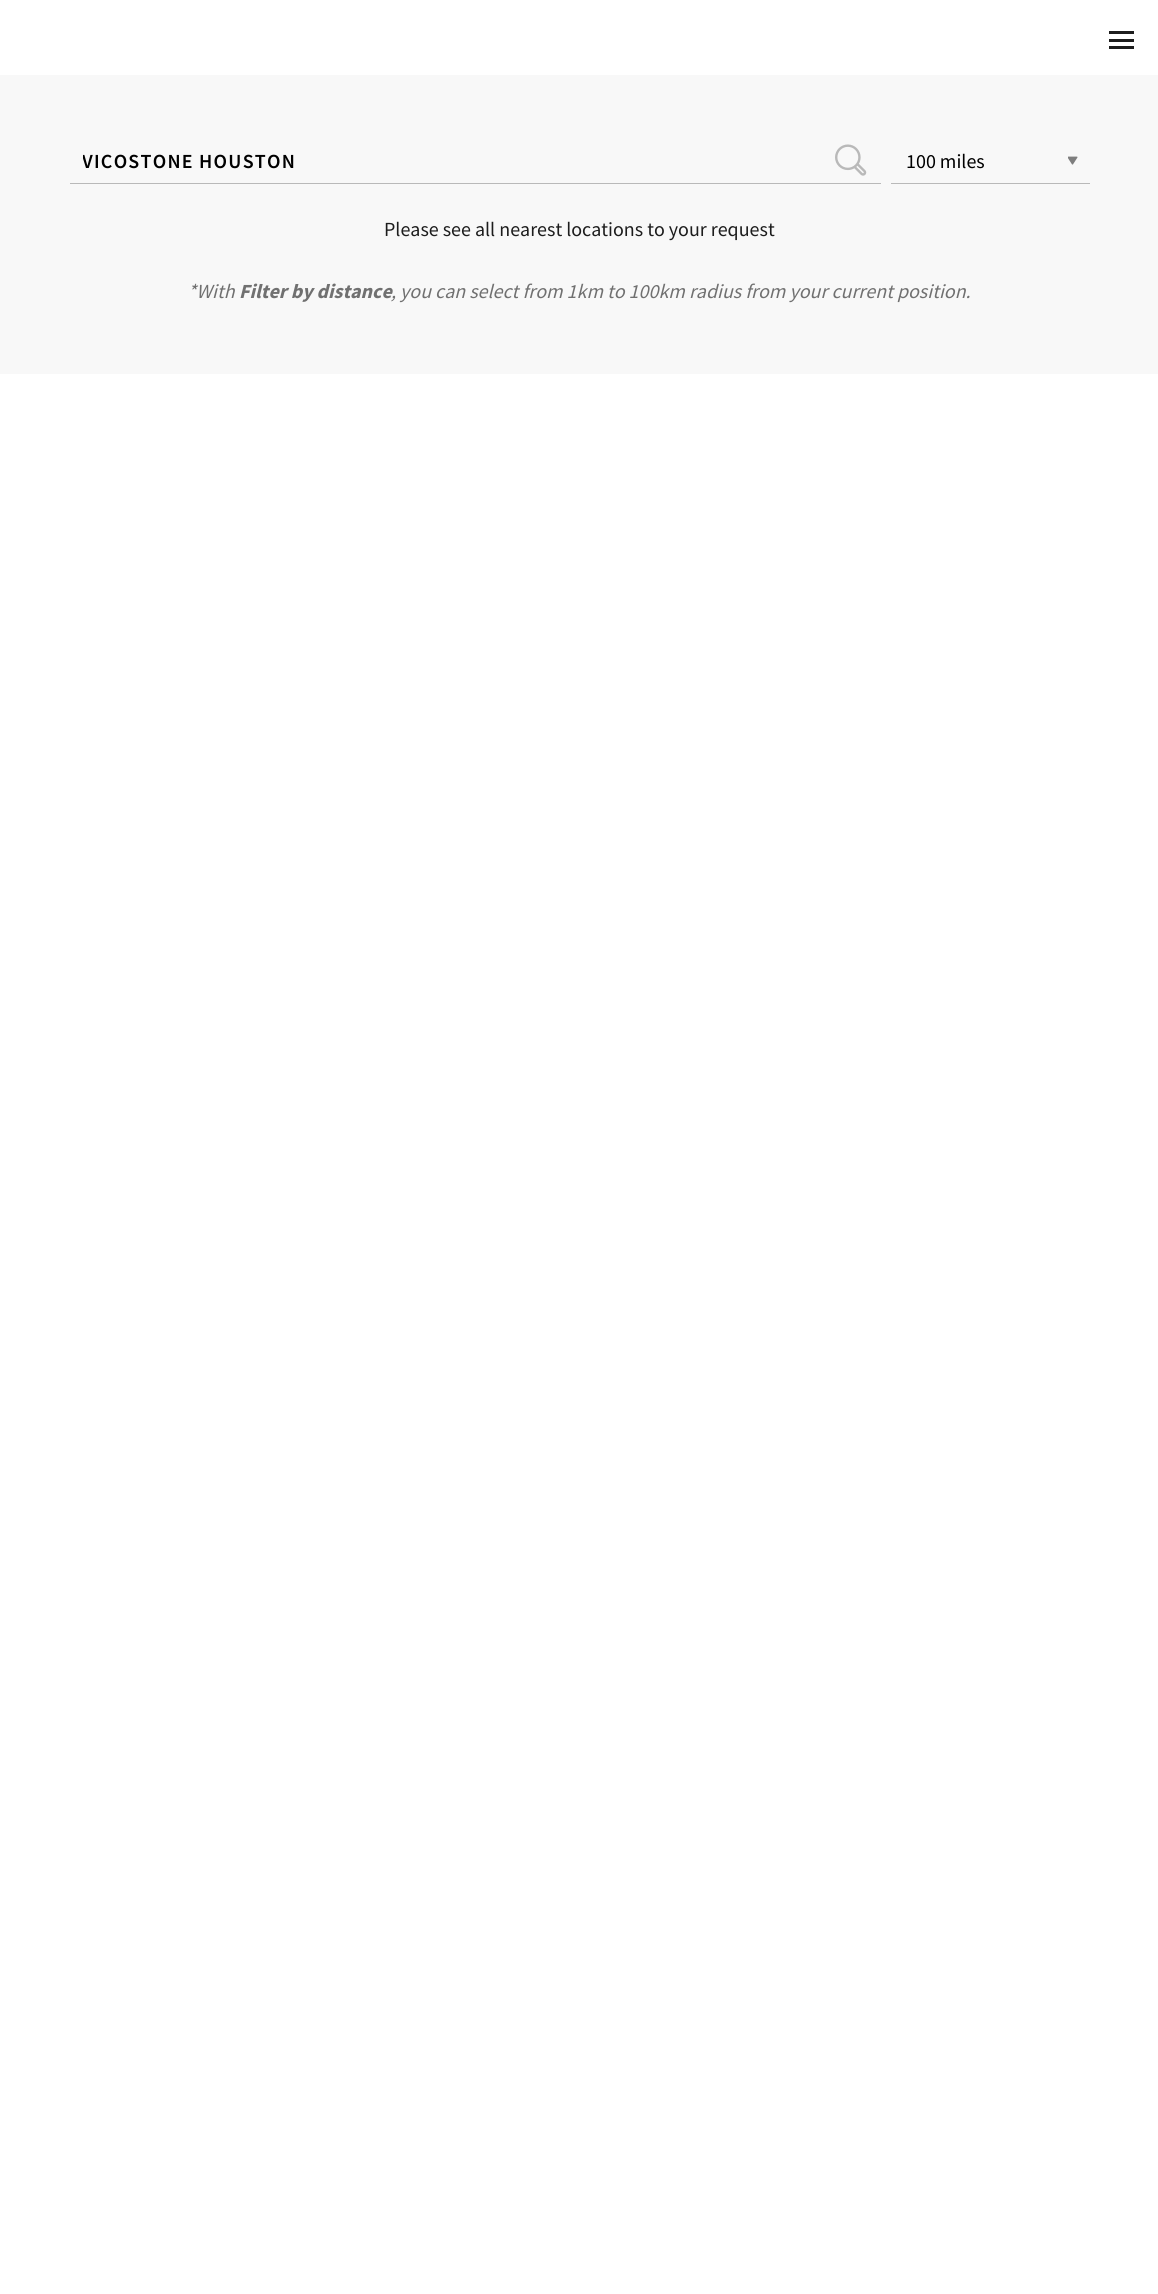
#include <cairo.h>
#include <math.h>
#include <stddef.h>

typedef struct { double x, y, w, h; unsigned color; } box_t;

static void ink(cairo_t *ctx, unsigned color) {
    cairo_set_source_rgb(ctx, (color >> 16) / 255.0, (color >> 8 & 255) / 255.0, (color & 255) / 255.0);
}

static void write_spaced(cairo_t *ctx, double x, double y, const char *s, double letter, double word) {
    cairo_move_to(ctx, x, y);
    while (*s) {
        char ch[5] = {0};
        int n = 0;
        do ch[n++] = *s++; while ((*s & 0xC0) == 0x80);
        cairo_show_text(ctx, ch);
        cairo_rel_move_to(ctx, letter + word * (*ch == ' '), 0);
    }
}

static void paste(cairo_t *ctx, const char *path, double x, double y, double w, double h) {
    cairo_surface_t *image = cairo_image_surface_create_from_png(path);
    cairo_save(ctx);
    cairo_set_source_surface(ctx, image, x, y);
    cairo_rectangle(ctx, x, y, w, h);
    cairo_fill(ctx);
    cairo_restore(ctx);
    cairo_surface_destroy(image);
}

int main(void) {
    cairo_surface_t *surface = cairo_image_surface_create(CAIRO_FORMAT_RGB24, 1158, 2294);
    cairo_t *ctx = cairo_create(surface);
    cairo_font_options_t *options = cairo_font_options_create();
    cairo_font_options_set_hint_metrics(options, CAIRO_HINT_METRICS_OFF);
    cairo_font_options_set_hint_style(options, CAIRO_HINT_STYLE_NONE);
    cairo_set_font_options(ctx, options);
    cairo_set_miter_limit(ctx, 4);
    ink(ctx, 0xFFFFFF);
    cairo_paint(ctx);
    {
        static const box_t items[] = {
            {1109, 31, 25, 3, 0x1D1D1D},
            {1109, 39, 25, 3, 0x1D1D1D},
            {1109, 46, 25, 3, 0x1D1D1D},
            {0, 75, 1158, 299, 0xF8F8F8},
            {70, 183, 811, 1, 0xB9B9B9},
        };
        for (size_t i = 0; i < sizeof items / sizeof *items; i++) {
            ink(ctx, items[i].color);
            cairo_rectangle(ctx, items[i].x, items[i].y, items[i].w, items[i].h);
            cairo_fill(ctx);
        }
    }
    cairo_save(ctx);
    cairo_rectangle(ctx, 83, 145, 720, 30);
    cairo_clip(ctx);
    cairo_select_font_face(ctx, "Source Sans Pro SemiBold", CAIRO_FONT_SLANT_NORMAL, CAIRO_FONT_WEIGHT_NORMAL);
    cairo_set_font_size(ctx, 20);
    ink(ctx, 0x000000);
    write_spaced(ctx, 82, 168, "VICOSTONE HOUSTON", 1.25, 0);
    cairo_restore(ctx);
    paste(ctx, "media/1.png", 835, 144, 32, 32);
    paste(ctx, "media/2.png", 1068, 156, 10, 9);
    cairo_rectangle(ctx, 891, 183, 199, 1);
    cairo_fill(ctx);
    cairo_select_font_face(ctx, "Source Sans Pro", CAIRO_FONT_SLANT_NORMAL, CAIRO_FONT_WEIGHT_NORMAL);
    cairo_set_font_size(ctx, 20);
    ink(ctx, 0x000000);
    cairo_move_to(ctx, 906, 168);
    cairo_show_text(ctx, "100 miles");
    ink(ctx, 0x1D1D1D);
    cairo_move_to(ctx, 384, 236);
    cairo_show_text(ctx, "Please see all nearest locations to your request");
    cairo_select_font_face(ctx, "Source Sans Pro", CAIRO_FONT_SLANT_ITALIC, CAIRO_FONT_WEIGHT_NORMAL);
    ink(ctx, 0x707070);
    cairo_move_to(ctx, 188, 298);
    cairo_show_text(ctx, "*With");
    cairo_select_font_face(ctx, "Source Sans Pro", CAIRO_FONT_SLANT_ITALIC, CAIRO_FONT_WEIGHT_BOLD);
    cairo_move_to(ctx, 239, 298);
    cairo_show_text(ctx, "Filter by distance");
    cairo_select_font_face(ctx, "Source Sans Pro", CAIRO_FONT_SLANT_ITALIC, CAIRO_FONT_WEIGHT_NORMAL);
    cairo_move_to(ctx, 391, 298);
    cairo_show_text(ctx, ", you can select from 1km to 100km radius from your current position.");
    cairo_surface_write_to_png(surface, "image.png");
    cairo_font_options_destroy(options);
    cairo_destroy(ctx);
    cairo_surface_destroy(surface);
    return 0;
}
